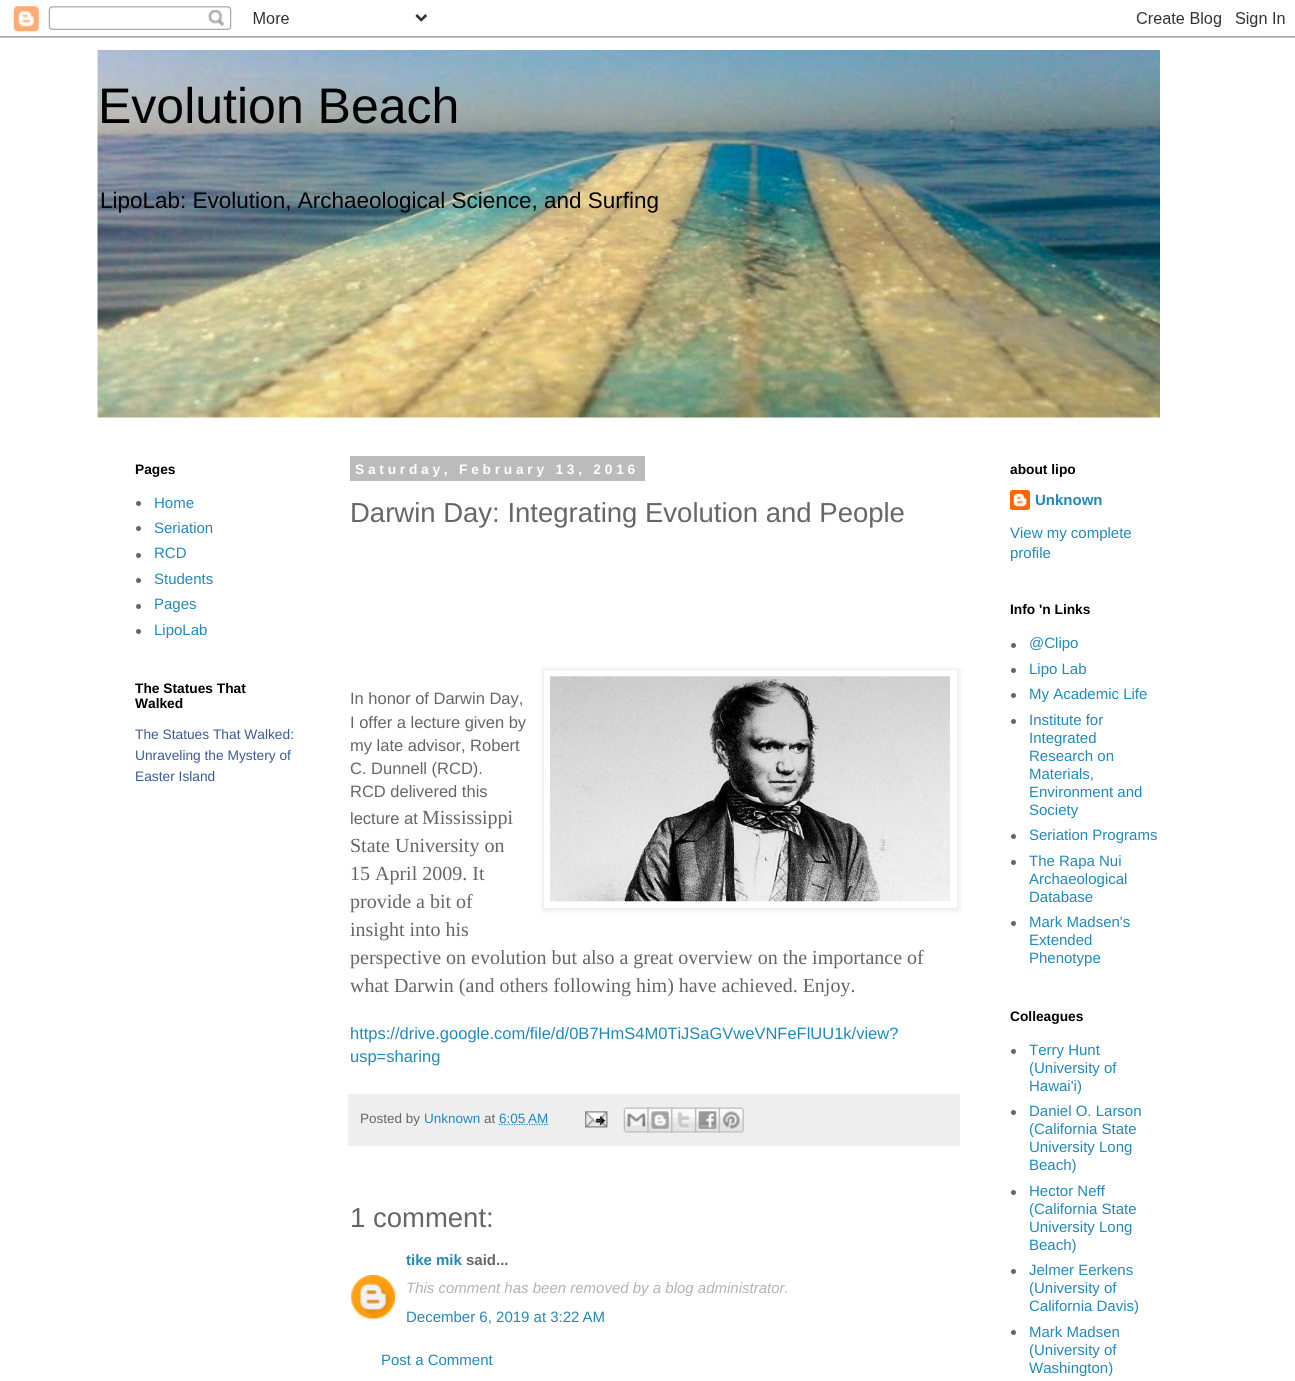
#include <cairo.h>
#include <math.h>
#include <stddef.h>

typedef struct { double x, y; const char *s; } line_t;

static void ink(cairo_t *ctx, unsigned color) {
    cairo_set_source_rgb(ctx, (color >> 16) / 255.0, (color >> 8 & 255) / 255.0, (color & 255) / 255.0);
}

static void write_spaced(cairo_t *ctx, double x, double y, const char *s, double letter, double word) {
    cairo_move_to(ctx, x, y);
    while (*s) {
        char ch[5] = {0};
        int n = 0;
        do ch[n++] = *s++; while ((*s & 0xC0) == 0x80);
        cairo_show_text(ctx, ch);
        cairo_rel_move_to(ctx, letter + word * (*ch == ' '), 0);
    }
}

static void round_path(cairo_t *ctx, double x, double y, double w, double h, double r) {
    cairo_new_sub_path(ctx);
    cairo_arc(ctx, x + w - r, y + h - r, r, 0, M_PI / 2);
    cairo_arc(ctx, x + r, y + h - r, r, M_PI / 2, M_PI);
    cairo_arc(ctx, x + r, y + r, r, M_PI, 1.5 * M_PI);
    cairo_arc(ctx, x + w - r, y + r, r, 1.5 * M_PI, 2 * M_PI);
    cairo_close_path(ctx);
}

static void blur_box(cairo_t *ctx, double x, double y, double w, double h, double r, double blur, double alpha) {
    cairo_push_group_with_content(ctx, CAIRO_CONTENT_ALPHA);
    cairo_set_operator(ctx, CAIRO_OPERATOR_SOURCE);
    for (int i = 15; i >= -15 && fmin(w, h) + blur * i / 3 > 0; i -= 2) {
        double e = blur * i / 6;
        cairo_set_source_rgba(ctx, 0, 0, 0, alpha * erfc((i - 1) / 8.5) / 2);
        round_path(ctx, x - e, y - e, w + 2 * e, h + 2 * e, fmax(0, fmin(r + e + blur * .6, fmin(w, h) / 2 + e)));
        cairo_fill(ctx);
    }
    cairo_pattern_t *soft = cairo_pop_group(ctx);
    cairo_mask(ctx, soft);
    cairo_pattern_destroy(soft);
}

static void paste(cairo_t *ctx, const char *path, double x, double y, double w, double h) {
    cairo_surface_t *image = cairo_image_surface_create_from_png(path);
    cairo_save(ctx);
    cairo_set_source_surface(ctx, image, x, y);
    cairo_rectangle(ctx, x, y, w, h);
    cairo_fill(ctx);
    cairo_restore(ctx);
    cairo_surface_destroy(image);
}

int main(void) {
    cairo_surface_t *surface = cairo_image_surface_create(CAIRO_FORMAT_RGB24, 1295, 1381);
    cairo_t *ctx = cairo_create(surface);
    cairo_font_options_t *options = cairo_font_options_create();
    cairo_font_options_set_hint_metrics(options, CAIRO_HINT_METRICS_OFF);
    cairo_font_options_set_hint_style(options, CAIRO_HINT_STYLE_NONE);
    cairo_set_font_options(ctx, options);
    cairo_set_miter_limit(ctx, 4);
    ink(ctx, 0xFFFFFF);
    cairo_paint(ctx);
    paste(ctx, "media/1.png", 0, 6, 1295, 32);
    paste(ctx, "media/2.png", 97, 50, 1063, 368);
    cairo_select_font_face(ctx, "Liberation Sans", CAIRO_FONT_SLANT_NORMAL, CAIRO_FONT_WEIGHT_NORMAL);
    cairo_set_font_size(ctx, 50);
    ink(ctx, 0x000000);
    cairo_move_to(ctx, 98, 123);
    cairo_show_text(ctx, "Evolution Beach");
    cairo_set_font_size(ctx, 22.5);
    cairo_move_to(ctx, 100, 208);
    cairo_show_text(ctx, "LipoLab: Evolution, Archaeological Science, and Surfing");
    cairo_select_font_face(ctx, "Liberation Sans", CAIRO_FONT_SLANT_NORMAL, CAIRO_FONT_WEIGHT_BOLD);
    cairo_set_font_size(ctx, 13.75);
    cairo_move_to(ctx, 135, 474);
    cairo_show_text(ctx, "Pages");
    ink(ctx, 0x666666);
    cairo_new_path(ctx);
    cairo_arc(ctx, 138.5, 503.5, 2.5, 0, 2 * M_PI);
    cairo_fill(ctx);
    cairo_select_font_face(ctx, "Liberation Sans", CAIRO_FONT_SLANT_NORMAL, CAIRO_FONT_WEIGHT_NORMAL);
    cairo_set_font_size(ctx, 15);
    ink(ctx, 0x2288BB);
    cairo_move_to(ctx, 154, 508);
    cairo_show_text(ctx, "Home");
    ink(ctx, 0x666666);
    cairo_new_path(ctx);
    cairo_arc(ctx, 138.5, 528.5, 2.5, 0, 2 * M_PI);
    cairo_fill(ctx);
    ink(ctx, 0x2288BB);
    cairo_move_to(ctx, 154, 533);
    cairo_show_text(ctx, "Seriation");
    ink(ctx, 0x666666);
    cairo_new_path(ctx);
    cairo_arc(ctx, 138.5, 555.5, 2.5, 0, 2 * M_PI);
    cairo_fill(ctx);
    ink(ctx, 0x2288BB);
    cairo_move_to(ctx, 154, 558);
    cairo_show_text(ctx, "RCD");
    ink(ctx, 0x666666);
    cairo_new_path(ctx);
    cairo_arc(ctx, 138.5, 580.5, 2.5, 0, 2 * M_PI);
    cairo_fill(ctx);
    ink(ctx, 0x2288BB);
    cairo_move_to(ctx, 154, 584);
    cairo_show_text(ctx, "Students");
    ink(ctx, 0x666666);
    cairo_new_path(ctx);
    cairo_arc(ctx, 138.5, 606.5, 2.5, 0, 2 * M_PI);
    cairo_fill(ctx);
    ink(ctx, 0x2288BB);
    cairo_move_to(ctx, 154, 609);
    cairo_show_text(ctx, "Pages");
    ink(ctx, 0x666666);
    cairo_new_path(ctx);
    cairo_arc(ctx, 138.5, 631.5, 2.5, 0, 2 * M_PI);
    cairo_fill(ctx);
    ink(ctx, 0x2288BB);
    cairo_move_to(ctx, 154, 635);
    cairo_show_text(ctx, "LipoLab");
    cairo_select_font_face(ctx, "Liberation Sans", CAIRO_FONT_SLANT_NORMAL, CAIRO_FONT_WEIGHT_BOLD);
    cairo_set_font_size(ctx, 13.75);
    ink(ctx, 0x000000);
    cairo_move_to(ctx, 135, 693);
    cairo_show_text(ctx, "The Statues That");
    cairo_move_to(ctx, 135, 708);
    cairo_show_text(ctx, "Walked");
    cairo_select_font_face(ctx, "Liberation Sans", CAIRO_FONT_SLANT_NORMAL, CAIRO_FONT_WEIGHT_NORMAL);
    ink(ctx, 0x3B5998);
    {
        static const line_t items[] = {
            {135, 739, "The Statues That Walked:"},
            {135, 760, "Unraveling the Mystery of"},
            {135, 781, "Easter Island"},
        };
        for (size_t i = 0; i < sizeof items / sizeof *items; i++) {
            cairo_move_to(ctx, items[i].x, items[i].y);
            cairo_show_text(ctx, items[i].s);
        }
    }
    ink(ctx, 0xBBBBBB);
    cairo_rectangle(ctx, 350, 456, 295, 25);
    cairo_fill(ctx);
    cairo_select_font_face(ctx, "Liberation Sans", CAIRO_FONT_SLANT_NORMAL, CAIRO_FONT_WEIGHT_BOLD);
    ink(ctx, 0xFFFFFF);
    write_spaced(ctx, 355, 474, "Saturday, February 13, 2016", 3.75, 0);
    cairo_select_font_face(ctx, "Liberation Sans", CAIRO_FONT_SLANT_NORMAL, CAIRO_FONT_WEIGHT_NORMAL);
    cairo_set_font_size(ctx, 27.5);
    ink(ctx, 0x666666);
    cairo_move_to(ctx, 350, 522);
    cairo_show_text(ctx, "Darwin Day: Integrating Evolution and People");
    cairo_set_font_size(ctx, 16.5);
    cairo_move_to(ctx, 350, 704);
    cairo_show_text(ctx, "In honor of Darwin Day,");
    ink(ctx, 0x000000);
    blur_box(ctx, 544, 670, 415, 240, 0, 3, 0.1);
    ink(ctx, 0xFFFFFF);
    cairo_rectangle(ctx, 543.5, 669.5, 414, 239);
    cairo_fill_preserve(ctx);
    ink(ctx, 0xEEEEEE);
    cairo_set_line_width(ctx, 1);
    cairo_stroke(ctx);
    paste(ctx, "media/3.png", 550, 676, 400, 226);
    ink(ctx, 0x666666);
    {
        static const line_t items[] = {
            {350, 728, "I offer a lecture given by"},
            {350, 751, "my late advisor, Robert"},
            {350, 774, "C. Dunnell (RCD)."},
            {350, 797, "RCD delivered this"},
            {350, 824, "lecture at"},
        };
        for (size_t i = 0; i < sizeof items / sizeof *items; i++) {
            cairo_move_to(ctx, items[i].x, items[i].y);
            cairo_show_text(ctx, items[i].s);
        }
    }
    cairo_select_font_face(ctx, "Liberation Serif", CAIRO_FONT_SLANT_NORMAL, CAIRO_FONT_WEIGHT_NORMAL);
    cairo_set_font_size(ctx, 20);
    {
        static const line_t items[] = {
            {422, 824, "Mississippi"},
            {350, 852, "State University on"},
            {350, 880, "15 April 2009. It"},
            {350, 908, "provide a bit of"},
            {350, 936, "insight into his"},
            {350, 964, "perspective on evolution but also a great overview on the importance of"},
            {350, 992, "what Darwin (and others following him) have achieved. Enjoy."},
        };
        for (size_t i = 0; i < sizeof items / sizeof *items; i++) {
            cairo_move_to(ctx, items[i].x, items[i].y);
            cairo_show_text(ctx, items[i].s);
        }
    }
    cairo_select_font_face(ctx, "Liberation Sans", CAIRO_FONT_SLANT_NORMAL, CAIRO_FONT_WEIGHT_NORMAL);
    cairo_set_font_size(ctx, 16.5);
    ink(ctx, 0x2288BB);
    cairo_move_to(ctx, 350, 1039);
    cairo_show_text(ctx, "https://drive.google.com/file/d/0B7HmS4M0TiJSaGVweVNFeFlUU1k/view?");
    cairo_move_to(ctx, 350, 1062);
    cairo_show_text(ctx, "usp=sharing");
    ink(ctx, 0xEEEEEE);
    cairo_rectangle(ctx, 348, 1094, 612, 52);
    cairo_fill(ctx);
    cairo_set_font_size(ctx, 13.5);
    ink(ctx, 0x666666);
    cairo_move_to(ctx, 360, 1123);
    cairo_show_text(ctx, "Posted by");
    ink(ctx, 0x2288BB);
    cairo_move_to(ctx, 424, 1123);
    cairo_show_text(ctx, "Unknown");
    ink(ctx, 0x666666);
    cairo_move_to(ctx, 484, 1123);
    cairo_show_text(ctx, "at");
    cairo_new_path(ctx);
    cairo_move_to(ctx, 499, 1124.5);
    cairo_line_to(ctx, 548, 1124.5);
    ink(ctx, 0x2288BB);
    cairo_set_line_width(ctx, 1.2);
    cairo_set_dash(ctx, (double[]){1.25, 1.25}, 2, 0);
    cairo_stroke(ctx);
    cairo_move_to(ctx, 499, 1123);
    cairo_show_text(ctx, "6:05 AM");
    paste(ctx, "media/4.png", 585, 1111, 23, 17);
    paste(ctx, "media/5.png", 623, 1107, 26, 26);
    paste(ctx, "media/6.png", 647, 1107, 26, 26);
    paste(ctx, "media/7.png", 671, 1107, 26, 26);
    paste(ctx, "media/8.png", 695, 1107, 25, 26);
    paste(ctx, "media/9.png", 718, 1107, 26, 26);
    cairo_set_font_size(ctx, 27.5);
    ink(ctx, 0x666666);
    cairo_move_to(ctx, 350, 1227);
    cairo_show_text(ctx, "1 comment:");
    cairo_select_font_face(ctx, "Liberation Sans", CAIRO_FONT_SLANT_NORMAL, CAIRO_FONT_WEIGHT_BOLD);
    cairo_set_font_size(ctx, 15);
    ink(ctx, 0x2288BB);
    cairo_move_to(ctx, 406, 1265);
    cairo_show_text(ctx, "tike mik");
    ink(ctx, 0x666666);
    cairo_move_to(ctx, 466, 1265);
    cairo_show_text(ctx, "said...");
    paste(ctx, "media/10.png", 351, 1275, 44, 44);
    cairo_select_font_face(ctx, "Liberation Sans", CAIRO_FONT_SLANT_ITALIC, CAIRO_FONT_WEIGHT_NORMAL);
    ink(ctx, 0xB3B3B3);
    cairo_move_to(ctx, 406, 1293);
    cairo_show_text(ctx, "This comment has been removed by a blog administrator.");
    cairo_select_font_face(ctx, "Liberation Sans", CAIRO_FONT_SLANT_NORMAL, CAIRO_FONT_WEIGHT_NORMAL);
    ink(ctx, 0x2288BB);
    cairo_move_to(ctx, 406, 1322);
    cairo_show_text(ctx, "December 6, 2019 at 3:22 AM");
    cairo_move_to(ctx, 381, 1365);
    cairo_show_text(ctx, "Post a Comment");
    cairo_select_font_face(ctx, "Liberation Sans", CAIRO_FONT_SLANT_NORMAL, CAIRO_FONT_WEIGHT_BOLD);
    cairo_set_font_size(ctx, 13.75);
    ink(ctx, 0x000000);
    cairo_move_to(ctx, 1010, 474);
    cairo_show_text(ctx, "about lipo");
    paste(ctx, "media/11.png", 1010, 490, 20, 20);
    cairo_set_font_size(ctx, 15);
    ink(ctx, 0x2288BB);
    cairo_move_to(ctx, 1035, 505);
    cairo_show_text(ctx, "Unknown");
    cairo_select_font_face(ctx, "Liberation Sans", CAIRO_FONT_SLANT_NORMAL, CAIRO_FONT_WEIGHT_NORMAL);
    cairo_move_to(ctx, 1010, 538);
    cairo_show_text(ctx, "View my complete");
    cairo_move_to(ctx, 1010, 558);
    cairo_show_text(ctx, "profile");
    cairo_select_font_face(ctx, "Liberation Sans", CAIRO_FONT_SLANT_NORMAL, CAIRO_FONT_WEIGHT_BOLD);
    cairo_set_font_size(ctx, 13.75);
    ink(ctx, 0x000000);
    cairo_move_to(ctx, 1010, 614);
    cairo_show_text(ctx, "Info 'n Links");
    ink(ctx, 0x666666);
    cairo_new_path(ctx);
    cairo_arc(ctx, 1013.5, 645.5, 2.5, 0, 2 * M_PI);
    cairo_fill(ctx);
    cairo_select_font_face(ctx, "Liberation Sans", CAIRO_FONT_SLANT_NORMAL, CAIRO_FONT_WEIGHT_NORMAL);
    cairo_set_font_size(ctx, 15);
    ink(ctx, 0x2288BB);
    cairo_move_to(ctx, 1029, 648);
    cairo_show_text(ctx, "@Clipo");
    ink(ctx, 0x666666);
    cairo_new_path(ctx);
    cairo_arc(ctx, 1013.5, 670.5, 2.5, 0, 2 * M_PI);
    cairo_fill(ctx);
    ink(ctx, 0x2288BB);
    cairo_move_to(ctx, 1029, 674);
    cairo_show_text(ctx, "Lipo Lab");
    ink(ctx, 0x666666);
    cairo_new_path(ctx);
    cairo_arc(ctx, 1013.5, 695.5, 2.5, 0, 2 * M_PI);
    cairo_fill(ctx);
    ink(ctx, 0x2288BB);
    cairo_move_to(ctx, 1029, 699);
    cairo_show_text(ctx, "My Academic Life");
    ink(ctx, 0x666666);
    cairo_new_path(ctx);
    cairo_arc(ctx, 1013.5, 721.5, 2.5, 0, 2 * M_PI);
    cairo_fill(ctx);
    ink(ctx, 0x2288BB);
    {
        static const line_t items[] = {
            {1029, 725, "Institute for"},
            {1029, 743, "Integrated"},
            {1029, 761, "Research on"},
            {1029, 779, "Materials,"},
            {1029, 797, "Environment and"},
            {1029, 815, "Society"},
        };
        for (size_t i = 0; i < sizeof items / sizeof *items; i++) {
            cairo_move_to(ctx, items[i].x, items[i].y);
            cairo_show_text(ctx, items[i].s);
        }
    }
    ink(ctx, 0x666666);
    cairo_new_path(ctx);
    cairo_arc(ctx, 1013.5, 836.5, 2.5, 0, 2 * M_PI);
    cairo_fill(ctx);
    ink(ctx, 0x2288BB);
    cairo_move_to(ctx, 1029, 840);
    cairo_show_text(ctx, "Seriation Programs");
    ink(ctx, 0x666666);
    cairo_new_path(ctx);
    cairo_arc(ctx, 1013.5, 862.5, 2.5, 0, 2 * M_PI);
    cairo_fill(ctx);
    ink(ctx, 0x2288BB);
    {
        static const line_t items[] = {
            {1029, 866, "The Rapa Nui"},
            {1029, 884, "Archaeological"},
            {1029, 902, "Database"},
        };
        for (size_t i = 0; i < sizeof items / sizeof *items; i++) {
            cairo_move_to(ctx, items[i].x, items[i].y);
            cairo_show_text(ctx, items[i].s);
        }
    }
    ink(ctx, 0x666666);
    cairo_new_path(ctx);
    cairo_arc(ctx, 1013.5, 923.5, 2.5, 0, 2 * M_PI);
    cairo_fill(ctx);
    ink(ctx, 0x2288BB);
    {
        static const line_t items[] = {
            {1029, 927, "Mark Madsen's"},
            {1029, 945, "Extended"},
            {1029, 963, "Phenotype"},
        };
        for (size_t i = 0; i < sizeof items / sizeof *items; i++) {
            cairo_move_to(ctx, items[i].x, items[i].y);
            cairo_show_text(ctx, items[i].s);
        }
    }
    cairo_select_font_face(ctx, "Liberation Sans", CAIRO_FONT_SLANT_NORMAL, CAIRO_FONT_WEIGHT_BOLD);
    cairo_set_font_size(ctx, 13.75);
    ink(ctx, 0x000000);
    cairo_move_to(ctx, 1010, 1021);
    cairo_show_text(ctx, "Colleagues");
    ink(ctx, 0x666666);
    cairo_new_path(ctx);
    cairo_arc(ctx, 1013.5, 1051.5, 2.5, 0, 2 * M_PI);
    cairo_fill(ctx);
    cairo_select_font_face(ctx, "Liberation Sans", CAIRO_FONT_SLANT_NORMAL, CAIRO_FONT_WEIGHT_NORMAL);
    cairo_set_font_size(ctx, 15);
    ink(ctx, 0x2288BB);
    {
        static const line_t items[] = {
            {1029, 1055, "Terry Hunt"},
            {1029, 1073, "(University of"},
            {1029, 1091, "Hawai'i)"},
        };
        for (size_t i = 0; i < sizeof items / sizeof *items; i++) {
            cairo_move_to(ctx, items[i].x, items[i].y);
            cairo_show_text(ctx, items[i].s);
        }
    }
    ink(ctx, 0x666666);
    cairo_new_path(ctx);
    cairo_arc(ctx, 1013.5, 1112.5, 2.5, 0, 2 * M_PI);
    cairo_fill(ctx);
    ink(ctx, 0x2288BB);
    {
        static const line_t items[] = {
            {1029, 1116, "Daniel O. Larson"},
            {1029, 1134, "(California State"},
            {1029, 1152, "University Long"},
            {1029, 1170, "Beach)"},
        };
        for (size_t i = 0; i < sizeof items / sizeof *items; i++) {
            cairo_move_to(ctx, items[i].x, items[i].y);
            cairo_show_text(ctx, items[i].s);
        }
    }
    ink(ctx, 0x666666);
    cairo_new_path(ctx);
    cairo_arc(ctx, 1013.5, 1192.5, 2.5, 0, 2 * M_PI);
    cairo_fill(ctx);
    ink(ctx, 0x2288BB);
    {
        static const line_t items[] = {
            {1029, 1196, "Hector Neff"},
            {1029, 1214, "(California State"},
            {1029, 1232, "University Long"},
            {1029, 1250, "Beach)"},
        };
        for (size_t i = 0; i < sizeof items / sizeof *items; i++) {
            cairo_move_to(ctx, items[i].x, items[i].y);
            cairo_show_text(ctx, items[i].s);
        }
    }
    ink(ctx, 0x666666);
    cairo_new_path(ctx);
    cairo_arc(ctx, 1013.5, 1271.5, 2.5, 0, 2 * M_PI);
    cairo_fill(ctx);
    ink(ctx, 0x2288BB);
    {
        static const line_t items[] = {
            {1029, 1275, "Jelmer Eerkens"},
            {1029, 1293, "(University of"},
            {1029, 1311, "California Davis)"},
        };
        for (size_t i = 0; i < sizeof items / sizeof *items; i++) {
            cairo_move_to(ctx, items[i].x, items[i].y);
            cairo_show_text(ctx, items[i].s);
        }
    }
    ink(ctx, 0x666666);
    cairo_new_path(ctx);
    cairo_arc(ctx, 1013.5, 1332.5, 2.5, 0, 2 * M_PI);
    cairo_fill(ctx);
    ink(ctx, 0x2288BB);
    {
        static const line_t items[] = {
            {1029, 1337, "Mark Madsen"},
            {1029, 1355, "(University of"},
            {1029, 1373, "Washington)"},
        };
        for (size_t i = 0; i < sizeof items / sizeof *items; i++) {
            cairo_move_to(ctx, items[i].x, items[i].y);
            cairo_show_text(ctx, items[i].s);
        }
    }
    cairo_surface_write_to_png(surface, "image.png");
    cairo_font_options_destroy(options);
    cairo_destroy(ctx);
    cairo_surface_destroy(surface);
    return 0;
}
